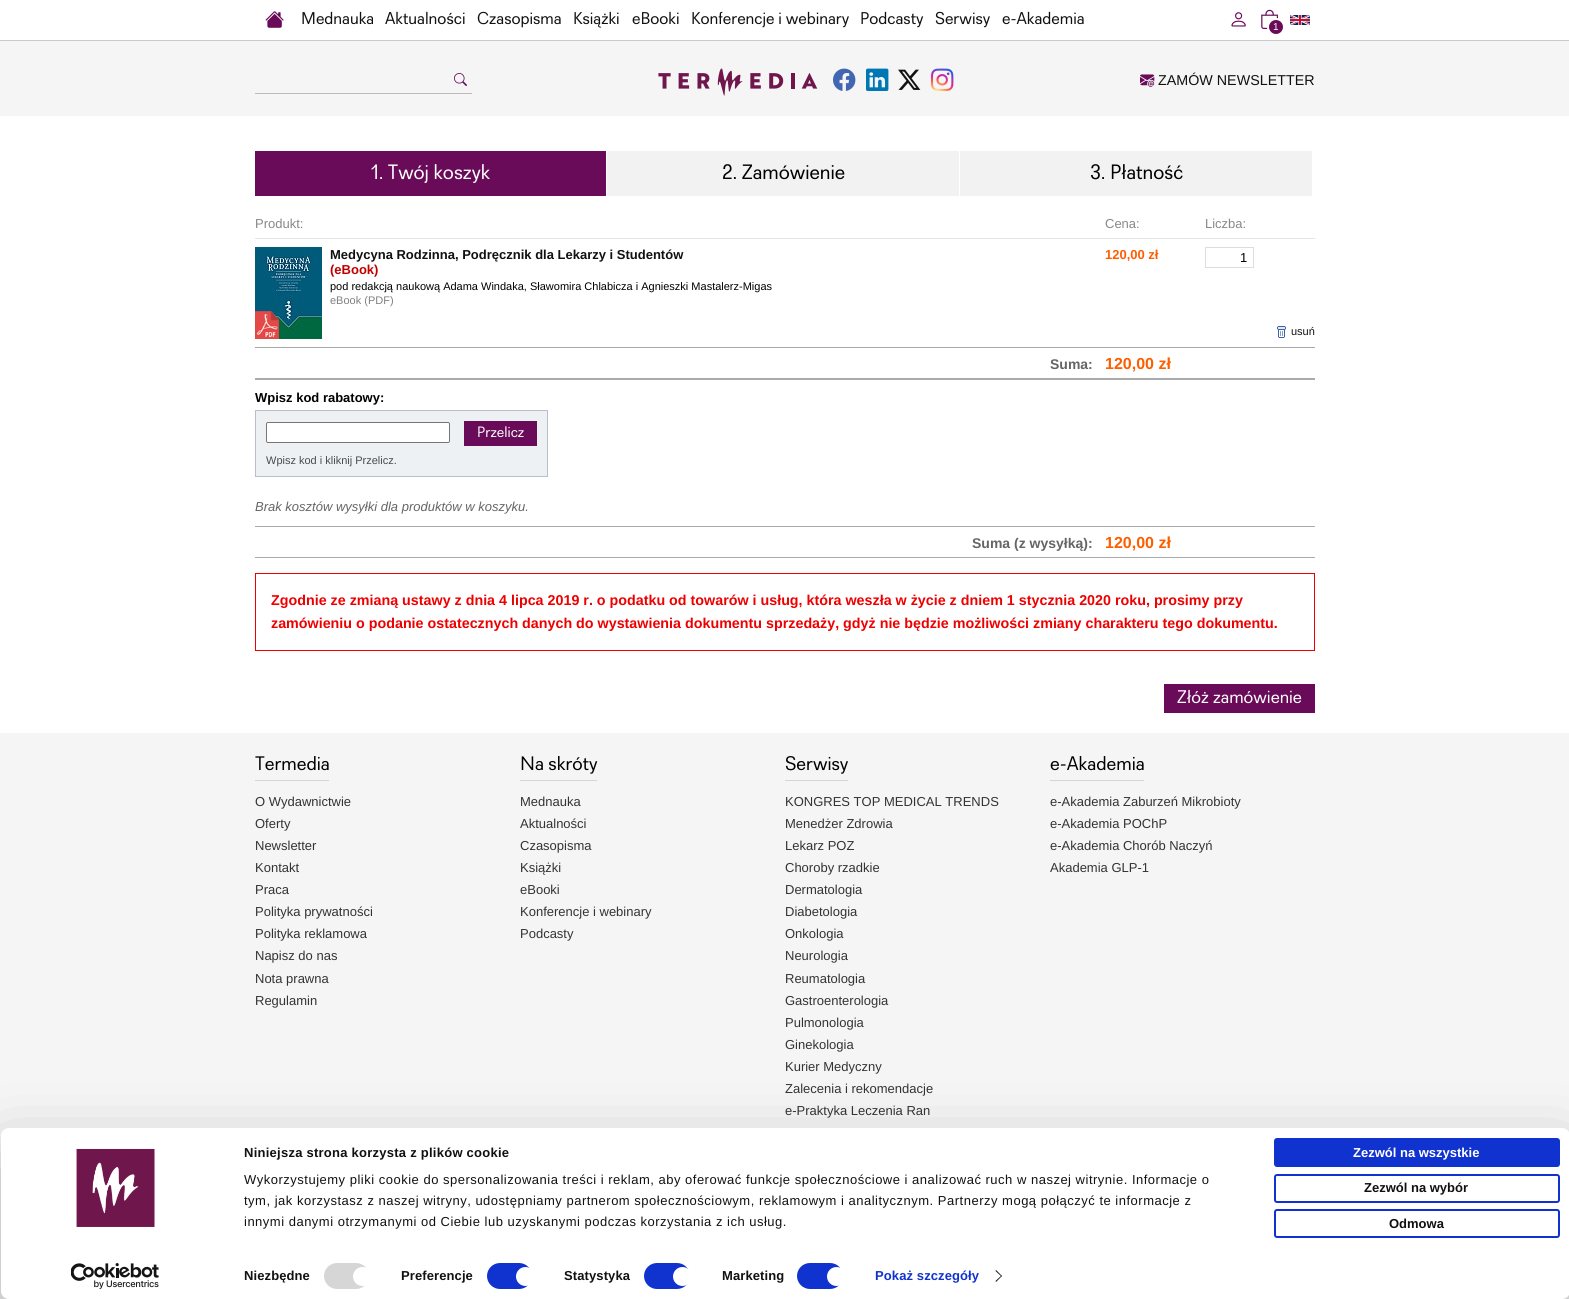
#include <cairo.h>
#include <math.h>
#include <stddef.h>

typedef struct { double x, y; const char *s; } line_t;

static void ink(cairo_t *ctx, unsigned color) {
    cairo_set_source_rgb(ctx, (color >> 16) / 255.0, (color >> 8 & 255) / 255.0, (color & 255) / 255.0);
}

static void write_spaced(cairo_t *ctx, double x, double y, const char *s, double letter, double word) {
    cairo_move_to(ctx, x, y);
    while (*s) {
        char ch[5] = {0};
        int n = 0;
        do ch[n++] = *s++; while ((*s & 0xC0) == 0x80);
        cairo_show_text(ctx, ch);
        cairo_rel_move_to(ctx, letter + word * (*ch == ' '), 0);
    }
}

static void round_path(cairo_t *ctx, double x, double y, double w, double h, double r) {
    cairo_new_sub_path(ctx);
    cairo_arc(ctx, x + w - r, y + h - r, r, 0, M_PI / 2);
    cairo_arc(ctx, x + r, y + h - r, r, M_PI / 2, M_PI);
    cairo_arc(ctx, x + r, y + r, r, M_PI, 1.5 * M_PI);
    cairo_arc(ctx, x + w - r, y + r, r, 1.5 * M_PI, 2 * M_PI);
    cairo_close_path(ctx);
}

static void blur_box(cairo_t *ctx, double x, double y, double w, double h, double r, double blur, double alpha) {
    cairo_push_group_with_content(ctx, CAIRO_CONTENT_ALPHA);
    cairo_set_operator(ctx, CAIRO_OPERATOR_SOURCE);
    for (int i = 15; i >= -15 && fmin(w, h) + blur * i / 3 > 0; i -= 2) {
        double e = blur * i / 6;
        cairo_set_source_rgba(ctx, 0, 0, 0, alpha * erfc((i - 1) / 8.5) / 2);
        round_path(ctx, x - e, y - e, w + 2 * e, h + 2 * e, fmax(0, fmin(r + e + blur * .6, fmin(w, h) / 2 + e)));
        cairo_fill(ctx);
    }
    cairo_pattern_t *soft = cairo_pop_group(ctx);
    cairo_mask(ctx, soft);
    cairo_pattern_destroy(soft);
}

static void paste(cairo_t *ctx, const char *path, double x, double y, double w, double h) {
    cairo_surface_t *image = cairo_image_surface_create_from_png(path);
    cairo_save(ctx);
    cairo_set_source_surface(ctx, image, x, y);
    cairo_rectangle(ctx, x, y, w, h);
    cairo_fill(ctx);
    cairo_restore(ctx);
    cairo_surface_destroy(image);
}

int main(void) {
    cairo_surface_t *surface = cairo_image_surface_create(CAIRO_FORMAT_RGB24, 1569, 1299);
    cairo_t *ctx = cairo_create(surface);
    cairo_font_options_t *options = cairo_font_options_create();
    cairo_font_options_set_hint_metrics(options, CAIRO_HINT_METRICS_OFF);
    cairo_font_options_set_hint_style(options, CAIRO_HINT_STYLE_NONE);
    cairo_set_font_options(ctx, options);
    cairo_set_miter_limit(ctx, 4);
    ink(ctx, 0xF5F5F5);
    cairo_paint(ctx);
    ink(ctx, 0xFFFFFF);
    cairo_rectangle(ctx, 0, 0, 1569, 40);
    cairo_fill(ctx);
    ink(ctx, 0xCACACA);
    cairo_rectangle(ctx, 0, 40, 1569, 1);
    cairo_fill(ctx);
    paste(ctx, "media/1.png", 265, 11, 19, 17);
    cairo_select_font_face(ctx, "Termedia", CAIRO_FONT_SLANT_NORMAL, CAIRO_FONT_WEIGHT_NORMAL);
    cairo_set_font_size(ctx, 17);
    ink(ctx, 0x111111);
    {
        static const line_t items[] = {
            {301, 24, "Mednauka"},
            {385, 24, "Aktualności"},
            {477, 24, "Czasopisma"},
            {573, 24, "Książki"},
            {632, 24, "eBooki"},
            {691, 24, "Konferencje i webinary"},
            {860, 24, "Podcasty"},
            {935, 24, "Serwisy"},
            {1002, 24, "e-Akademia"},
        };
        for (size_t i = 0; i < sizeof items / sizeof *items; i++) {
            cairo_move_to(ctx, items[i].x, items[i].y);
            cairo_show_text(ctx, items[i].s);
        }
    }
    paste(ctx, "media/2.png", 1231, 12, 15, 15);
    paste(ctx, "media/3.png", 1290, 15, 20, 10);
    paste(ctx, "media/4.png", 1261, 9, 17, 20);
    ink(ctx, 0x690B59);
    cairo_arc(ctx, 1276, 27, 8, 0, 2 * M_PI);
    cairo_fill_preserve(ctx);
    ink(ctx, 0xFFFFFF);
    cairo_stroke(ctx);
    cairo_select_font_face(ctx, "Liberation Sans", CAIRO_FONT_SLANT_NORMAL, CAIRO_FONT_WEIGHT_NORMAL);
    cairo_set_font_size(ctx, 10);
    cairo_move_to(ctx, 1273, 30);
    cairo_show_text(ctx, "1");
    ink(ctx, 0xBBBBBB);
    cairo_rectangle(ctx, 255, 93, 217, 1);
    cairo_fill(ctx);
    paste(ctx, "media/5.png", 454, 73, 13, 13);
    paste(ctx, "media/6.png", 658, 68, 160, 28);
    paste(ctx, "media/7.png", 833, 68, 23, 23);
    paste(ctx, "media/8.png", 866, 68, 23, 23);
    paste(ctx, "media/9.png", 898, 69, 23, 21);
    paste(ctx, "media/10.png", 931, 68, 23, 23);
    paste(ctx, "media/11.png", 1140, 74, 15, 13);
    cairo_set_font_size(ctx, 14.3);
    ink(ctx, 0x111111);
    cairo_move_to(ctx, 1158, 85);
    cairo_show_text(ctx, "ZAMÓW NEWSLETTER");
    ink(ctx, 0xFFFFFF);
    cairo_rectangle(ctx, 0, 116, 1569, 617);
    cairo_fill(ctx);
    ink(ctx, 0x690B59);
    cairo_rectangle(ctx, 255, 151, 351, 45);
    cairo_fill(ctx);
    cairo_select_font_face(ctx, "Termedia", CAIRO_FONT_SLANT_NORMAL, CAIRO_FONT_WEIGHT_NORMAL);
    cairo_set_font_size(ctx, 20.75);
    ink(ctx, 0xFFFFFF);
    cairo_move_to(ctx, 371, 179);
    cairo_show_text(ctx, "1. Twój koszyk");
    ink(ctx, 0xF2F2F2);
    cairo_rectangle(ctx, 607, 151, 352, 45);
    cairo_fill(ctx);
    ink(ctx, 0x000000);
    cairo_move_to(ctx, 722, 179);
    cairo_show_text(ctx, "2. Zamówienie");
    ink(ctx, 0xF2F2F2);
    cairo_rectangle(ctx, 960, 151, 352, 45);
    cairo_fill(ctx);
    ink(ctx, 0x000000);
    cairo_move_to(ctx, 1090, 179);
    cairo_show_text(ctx, "3. Płatność");
    cairo_select_font_face(ctx, "Liberation Sans", CAIRO_FONT_SLANT_NORMAL, CAIRO_FONT_WEIGHT_NORMAL);
    cairo_set_font_size(ctx, 13);
    ink(ctx, 0x888888);
    {
        static const line_t items[] = {
            {255, 228, "Produkt:"},
            {1105, 228, "Cena:"},
            {1205, 228, "Liczba:"},
        };
        for (size_t i = 0; i < sizeof items / sizeof *items; i++) {
            cairo_move_to(ctx, items[i].x, items[i].y);
            cairo_show_text(ctx, items[i].s);
        }
    }
    ink(ctx, 0xE5E5E5);
    cairo_rectangle(ctx, 255, 238, 1060, 1);
    cairo_fill(ctx);
    paste(ctx, "media/12.png", 255, 247, 67, 92);
    paste(ctx, "media/13.png", 255, 311, 24, 28);
    cairo_select_font_face(ctx, "Liberation Sans", CAIRO_FONT_SLANT_NORMAL, CAIRO_FONT_WEIGHT_BOLD);
    ink(ctx, 0x111111);
    cairo_move_to(ctx, 330, 259);
    cairo_show_text(ctx, "Medycyna Rodzinna, Podręcznik dla Lekarzy i Studentów");
    ink(ctx, 0xC00000);
    cairo_move_to(ctx, 330, 274);
    cairo_show_text(ctx, "(eBook)");
    cairo_select_font_face(ctx, "Liberation Sans", CAIRO_FONT_SLANT_NORMAL, CAIRO_FONT_WEIGHT_NORMAL);
    cairo_set_font_size(ctx, 11);
    ink(ctx, 0x000000);
    cairo_move_to(ctx, 330, 290);
    cairo_show_text(ctx, "pod redakcją naukową Adama Windaka, Sławomira Chlabicza i Agnieszki Mastalerz-Migas");
    ink(ctx, 0x7F7F7F);
    cairo_move_to(ctx, 330, 304);
    cairo_show_text(ctx, "eBook (PDF)");
    cairo_select_font_face(ctx, "Liberation Sans", CAIRO_FONT_SLANT_NORMAL, CAIRO_FONT_WEIGHT_BOLD);
    cairo_set_font_size(ctx, 13);
    ink(ctx, 0xFD5F00);
    cairo_move_to(ctx, 1105, 259);
    cairo_show_text(ctx, "120,00 zł");
    cairo_rectangle(ctx, 1205.5, 247.5, 48, 20);
    ink(ctx, 0xDDDDDD);
    cairo_set_line_width(ctx, 1);
    cairo_stroke(ctx);
    cairo_select_font_face(ctx, "Liberation Sans", CAIRO_FONT_SLANT_NORMAL, CAIRO_FONT_WEIGHT_NORMAL);
    ink(ctx, 0x000000);
    cairo_move_to(ctx, 1240, 262);
    cairo_show_text(ctx, "1");
    paste(ctx, "media/14.png", 1277, 326, 9, 12);
    cairo_set_font_size(ctx, 11);
    ink(ctx, 0x111111);
    cairo_move_to(ctx, 1291, 335);
    cairo_show_text(ctx, "usuń");
    ink(ctx, 0xAAAAAA);
    cairo_rectangle(ctx, 255, 347, 1060, 1);
    cairo_fill(ctx);
    cairo_rectangle(ctx, 255, 378, 1060, 1);
    cairo_fill(ctx);
    cairo_select_font_face(ctx, "Liberation Sans", CAIRO_FONT_SLANT_NORMAL, CAIRO_FONT_WEIGHT_BOLD);
    cairo_set_font_size(ctx, 14);
    ink(ctx, 0x656565);
    cairo_move_to(ctx, 1050, 369);
    cairo_show_text(ctx, "Suma:");
    cairo_set_font_size(ctx, 16);
    ink(ctx, 0xFD5F00);
    cairo_move_to(ctx, 1105, 369);
    cairo_show_text(ctx, "120,00 zł");
    ink(ctx, 0xAAAAAA);
    cairo_rectangle(ctx, 255, 379, 1060, 1);
    cairo_fill(ctx);
    cairo_set_font_size(ctx, 13);
    ink(ctx, 0x000000);
    cairo_move_to(ctx, 255, 402);
    cairo_show_text(ctx, "Wpisz kod rabatowy:");
    ink(ctx, 0xEDF1F4);
    cairo_rectangle(ctx, 255.5, 410.5, 292, 66);
    cairo_fill_preserve(ctx);
    ink(ctx, 0xB8BFCB);
    cairo_stroke(ctx);
    ink(ctx, 0xFFFFFF);
    round_path(ctx, 266.5, 422.5, 183, 20, 1.5);
    cairo_fill_preserve(ctx);
    ink(ctx, 0x767676);
    cairo_stroke(ctx);
    ink(ctx, 0x690B59);
    cairo_rectangle(ctx, 464, 421, 73, 25);
    cairo_fill(ctx);
    cairo_select_font_face(ctx, "Termedia", CAIRO_FONT_SLANT_NORMAL, CAIRO_FONT_WEIGHT_NORMAL);
    cairo_set_font_size(ctx, 15);
    ink(ctx, 0xFFFFFF);
    cairo_move_to(ctx, 477, 437);
    cairo_show_text(ctx, "Przelicz");
    cairo_select_font_face(ctx, "Liberation Sans", CAIRO_FONT_SLANT_NORMAL, CAIRO_FONT_WEIGHT_NORMAL);
    cairo_set_font_size(ctx, 11);
    ink(ctx, 0x4A4A4A);
    cairo_move_to(ctx, 266, 464);
    cairo_show_text(ctx, "Wpisz kod i kliknij Przelicz.");
    cairo_select_font_face(ctx, "Liberation Sans", CAIRO_FONT_SLANT_ITALIC, CAIRO_FONT_WEIGHT_NORMAL);
    cairo_set_font_size(ctx, 13);
    ink(ctx, 0x656565);
    cairo_move_to(ctx, 255, 511);
    cairo_show_text(ctx, "Brak kosztów wysyłki dla produktów w koszyku.");
    ink(ctx, 0xAAAAAA);
    cairo_rectangle(ctx, 255, 526, 1060, 1);
    cairo_fill(ctx);
    cairo_rectangle(ctx, 255, 557, 1060, 1);
    cairo_fill(ctx);
    cairo_select_font_face(ctx, "Liberation Sans", CAIRO_FONT_SLANT_NORMAL, CAIRO_FONT_WEIGHT_BOLD);
    cairo_set_font_size(ctx, 14);
    ink(ctx, 0x656565);
    cairo_move_to(ctx, 972, 548);
    cairo_show_text(ctx, "Suma (z wysyłką):");
    cairo_set_font_size(ctx, 16);
    ink(ctx, 0xFD5F00);
    cairo_move_to(ctx, 1105, 548);
    cairo_show_text(ctx, "120,00 zł");
    cairo_rectangle(ctx, 255.5, 573.5, 1059, 77);
    ink(ctx, 0xEE0000);
    cairo_stroke(ctx);
    cairo_set_font_size(ctx, 14.3);
    cairo_move_to(ctx, 271, 605);
    cairo_show_text(ctx, "Zgodnie ze zmianą ustawy z dnia 4 lipca 2019 r. o podatku od towarów i usług, która weszła w życie z dniem 1 stycznia 2020 roku, prosimy przy");
    cairo_move_to(ctx, 271, 628);
    cairo_show_text(ctx, "zamówieniu o podanie ostatecznych danych do wystawienia dokumentu sprzedaży, gdyż nie będzie możliwości zmiany charakteru tego dokumentu.");
    ink(ctx, 0x690B59);
    cairo_rectangle(ctx, 1164, 684, 151, 29);
    cairo_fill(ctx);
    cairo_select_font_face(ctx, "Termedia", CAIRO_FONT_SLANT_NORMAL, CAIRO_FONT_WEIGHT_NORMAL);
    cairo_set_font_size(ctx, 18.25);
    ink(ctx, 0xFFFFFF);
    cairo_move_to(ctx, 1177, 703);
    cairo_show_text(ctx, "Złóż zamówienie");
    ink(ctx, 0xD5D5D5);
    cairo_rectangle(ctx, 255, 780, 74, 1);
    cairo_fill(ctx);
    cairo_set_font_size(ctx, 19.5);
    ink(ctx, 0x000000);
    cairo_move_to(ctx, 255, 770);
    cairo_show_text(ctx, "Termedia");
    cairo_select_font_face(ctx, "Liberation Sans", CAIRO_FONT_SLANT_NORMAL, CAIRO_FONT_WEIGHT_NORMAL);
    cairo_set_font_size(ctx, 13);
    ink(ctx, 0x333333);
    {
        static const line_t items[] = {
            {255, 806, "O Wydawnictwie"},
            {255, 828, "Oferty"},
            {255, 850, "Newsletter"},
            {255, 872, "Kontakt"},
            {255, 894, "Praca"},
            {255, 916, "Polityka prywatności"},
            {255, 938, "Polityka reklamowa"},
            {255, 960, "Napisz do nas"},
            {255, 983, "Nota prawna"},
            {255, 1005, "Regulamin"},
        };
        for (size_t i = 0; i < sizeof items / sizeof *items; i++) {
            cairo_move_to(ctx, items[i].x, items[i].y);
            cairo_show_text(ctx, items[i].s);
        }
    }
    ink(ctx, 0xD5D5D5);
    cairo_rectangle(ctx, 520, 780, 77, 1);
    cairo_fill(ctx);
    cairo_select_font_face(ctx, "Termedia", CAIRO_FONT_SLANT_NORMAL, CAIRO_FONT_WEIGHT_NORMAL);
    cairo_set_font_size(ctx, 19.5);
    ink(ctx, 0x000000);
    cairo_move_to(ctx, 520, 770);
    cairo_show_text(ctx, "Na skróty");
    cairo_select_font_face(ctx, "Liberation Sans", CAIRO_FONT_SLANT_NORMAL, CAIRO_FONT_WEIGHT_NORMAL);
    cairo_set_font_size(ctx, 13);
    ink(ctx, 0x333333);
    {
        static const line_t items[] = {
            {520, 806, "Mednauka"},
            {520, 828, "Aktualności"},
            {520, 850, "Czasopisma"},
            {520, 872, "Książki"},
            {520, 894, "eBooki"},
            {520, 916, "Konferencje i webinary"},
            {520, 938, "Podcasty"},
        };
        for (size_t i = 0; i < sizeof items / sizeof *items; i++) {
            cairo_move_to(ctx, items[i].x, items[i].y);
            cairo_show_text(ctx, items[i].s);
        }
    }
    ink(ctx, 0xD5D5D5);
    cairo_rectangle(ctx, 785, 780, 63, 1);
    cairo_fill(ctx);
    cairo_select_font_face(ctx, "Termedia", CAIRO_FONT_SLANT_NORMAL, CAIRO_FONT_WEIGHT_NORMAL);
    cairo_set_font_size(ctx, 19.5);
    ink(ctx, 0x000000);
    cairo_move_to(ctx, 785, 770);
    cairo_show_text(ctx, "Serwisy");
    cairo_select_font_face(ctx, "Liberation Sans", CAIRO_FONT_SLANT_NORMAL, CAIRO_FONT_WEIGHT_NORMAL);
    cairo_set_font_size(ctx, 13);
    ink(ctx, 0x333333);
    {
        static const line_t items[] = {
            {785, 806, "KONGRES TOP MEDICAL TRENDS"},
            {785, 828, "Menedżer Zdrowia"},
            {785, 850, "Lekarz POZ"},
            {785, 872, "Choroby rzadkie"},
            {785, 894, "Dermatologia"},
            {785, 916, "Diabetologia"},
            {785, 938, "Onkologia"},
            {785, 960, "Neurologia"},
            {785, 983, "Reumatologia"},
            {785, 1005, "Gastroenterologia"},
            {785, 1027, "Pulmonologia"},
            {785, 1049, "Ginekologia"},
            {785, 1071, "Kurier Medyczny"},
            {785, 1093, "Zalecenia i rekomendacje"},
            {785, 1115, "e-Praktyka Leczenia Ran"},
        };
        for (size_t i = 0; i < sizeof items / sizeof *items; i++) {
            cairo_move_to(ctx, items[i].x, items[i].y);
            cairo_show_text(ctx, items[i].s);
        }
    }
    ink(ctx, 0xD5D5D5);
    cairo_rectangle(ctx, 1050, 780, 94, 1);
    cairo_fill(ctx);
    cairo_select_font_face(ctx, "Termedia", CAIRO_FONT_SLANT_NORMAL, CAIRO_FONT_WEIGHT_NORMAL);
    cairo_set_font_size(ctx, 19.5);
    ink(ctx, 0x000000);
    cairo_move_to(ctx, 1050, 770);
    cairo_show_text(ctx, "e-Akademia");
    cairo_select_font_face(ctx, "Liberation Sans", CAIRO_FONT_SLANT_NORMAL, CAIRO_FONT_WEIGHT_NORMAL);
    cairo_set_font_size(ctx, 13);
    ink(ctx, 0x333333);
    {
        static const line_t items[] = {
            {1050, 806, "e-Akademia Zaburzeń Mikrobioty"},
            {1050, 828, "e-Akademia POChP"},
            {1050, 850, "e-Akademia Chorób Naczyń"},
            {1050, 872, "Akademia GLP-1"},
        };
        for (size_t i = 0; i < sizeof items / sizeof *items; i++) {
            cairo_move_to(ctx, items[i].x, items[i].y);
            cairo_show_text(ctx, items[i].s);
        }
    }
    ink(ctx, 0x000000);
    blur_box(ctx, 1, 1158, 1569, 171, 8, 35, 0.3);
    ink(ctx, 0xFFFFFF);
    round_path(ctx, 1, 1128, 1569, 171, 8);
    cairo_fill(ctx);
    paste(ctx, "media/15.png", 76, 1148, 79, 79);
    paste(ctx, "media/16.png", 71, 1263, 88, 26);
    cairo_select_font_face(ctx, "Liberation Sans", CAIRO_FONT_SLANT_NORMAL, CAIRO_FONT_WEIGHT_BOLD);
    ink(ctx, 0x111111);
    write_spaced(ctx, 244, 1157, "Niniejsza strona korzysta z plików cookie", 0.25, 0);
    cairo_select_font_face(ctx, "Liberation Sans", CAIRO_FONT_SLANT_NORMAL, CAIRO_FONT_WEIGHT_NORMAL);
    {
        static const line_t items[] = {
            {244, 1184, "Wykorzystujemy pliki cookie do spersonalizowania treści i reklam, aby oferować funkcje społecznościowe i analizować ruch w naszej witrynie. Informacje o"},
            {244, 1205, "tym, jak korzystasz z naszej witryny, udostępniamy partnerom społecznościowym, reklamowym i analitycznym. Partnerzy mogą połączyć te informacje z"},
            {244, 1226, "innymi danymi otrzymanymi od Ciebie lub uzyskanymi podczas korzystania z ich usług."},
        };
        for (size_t i = 0; i < sizeof items / sizeof *items; i++) {
            write_spaced(ctx, items[i].x, items[i].y, items[i].s, 0.5, 0);
        }
    }
    cairo_select_font_face(ctx, "Liberation Sans", CAIRO_FONT_SLANT_NORMAL, CAIRO_FONT_WEIGHT_BOLD);
    write_spaced(ctx, 244, 1280, "Niezbędne", 0.1, 0);
    ink(ctx, 0xD6D6D6);
    round_path(ctx, 324, 1263, 45, 26, 13);
    cairo_fill(ctx);
    ink(ctx, 0xFFFFFF);
    cairo_arc(ctx, 362.5, 1276.5, 9.5, 0, 2 * M_PI);
    cairo_fill(ctx);
    ink(ctx, 0x111111);
    write_spaced(ctx, 401, 1280, "Preferencje", 0.1, 0);
    ink(ctx, 0x1032CF);
    round_path(ctx, 487, 1263, 45, 26, 13);
    cairo_fill(ctx);
    ink(ctx, 0xFFFFFF);
    cairo_arc(ctx, 525.5, 1276.5, 9.5, 0, 2 * M_PI);
    cairo_fill(ctx);
    ink(ctx, 0x111111);
    write_spaced(ctx, 564, 1280, "Statystyka", 0.1, 0);
    ink(ctx, 0x1032CF);
    round_path(ctx, 644, 1263, 46, 26, 13);
    cairo_fill(ctx);
    ink(ctx, 0xFFFFFF);
    cairo_arc(ctx, 682.5, 1276.5, 9.5, 0, 2 * M_PI);
    cairo_fill(ctx);
    ink(ctx, 0x111111);
    write_spaced(ctx, 722, 1280, "Marketing", 0.1, 0);
    ink(ctx, 0x1032CF);
    round_path(ctx, 797, 1263, 46, 26, 13);
    cairo_fill(ctx);
    ink(ctx, 0xFFFFFF);
    cairo_arc(ctx, 836.5, 1276.5, 9.5, 0, 2 * M_PI);
    cairo_fill(ctx);
    ink(ctx, 0x1032CF);
    write_spaced(ctx, 875, 1280, "Pokaż szczegóły", 0.1, 0);
    ink(ctx, 0x141414);
    cairo_new_path(ctx);
    cairo_move_to(ctx, 996, 1270);
    cairo_line_to(ctx, 1002, 1276);
    cairo_line_to(ctx, 1001.5, 1276.5);
    cairo_line_to(ctx, 995.5, 1271);
    cairo_close_path(ctx);
    cairo_fill(ctx);
    cairo_new_path(ctx);
    cairo_move_to(ctx, 1001.5, 1275.5);
    cairo_line_to(ctx, 1002, 1276);
    cairo_line_to(ctx, 996, 1282);
    cairo_line_to(ctx, 995.5, 1281);
    cairo_close_path(ctx);
    cairo_fill(ctx);
    ink(ctx, 0x1032CF);
    round_path(ctx, 1275, 1139, 284, 27, 2);
    cairo_fill_preserve(ctx);
    cairo_set_line_width(ctx, 2);
    cairo_stroke(ctx);
    ink(ctx, 0xFFFFFF);
    cairo_move_to(ctx, 1353, 1157);
    cairo_show_text(ctx, "Zezwól na wszystkie");
    round_path(ctx, 1275, 1175, 284, 27, 2);
    ink(ctx, 0x1032CF);
    cairo_stroke(ctx);
    ink(ctx, 0x111111);
    cairo_move_to(ctx, 1364, 1192);
    cairo_show_text(ctx, "Zezwól na wybór");
    round_path(ctx, 1275, 1210, 284, 27, 2);
    ink(ctx, 0x1032CF);
    cairo_stroke(ctx);
    ink(ctx, 0x111111);
    cairo_move_to(ctx, 1389, 1228);
    cairo_show_text(ctx, "Odmowa");
    cairo_surface_write_to_png(surface, "image.png");
    cairo_font_options_destroy(options);
    cairo_destroy(ctx);
    cairo_surface_destroy(surface);
    return 0;
}
